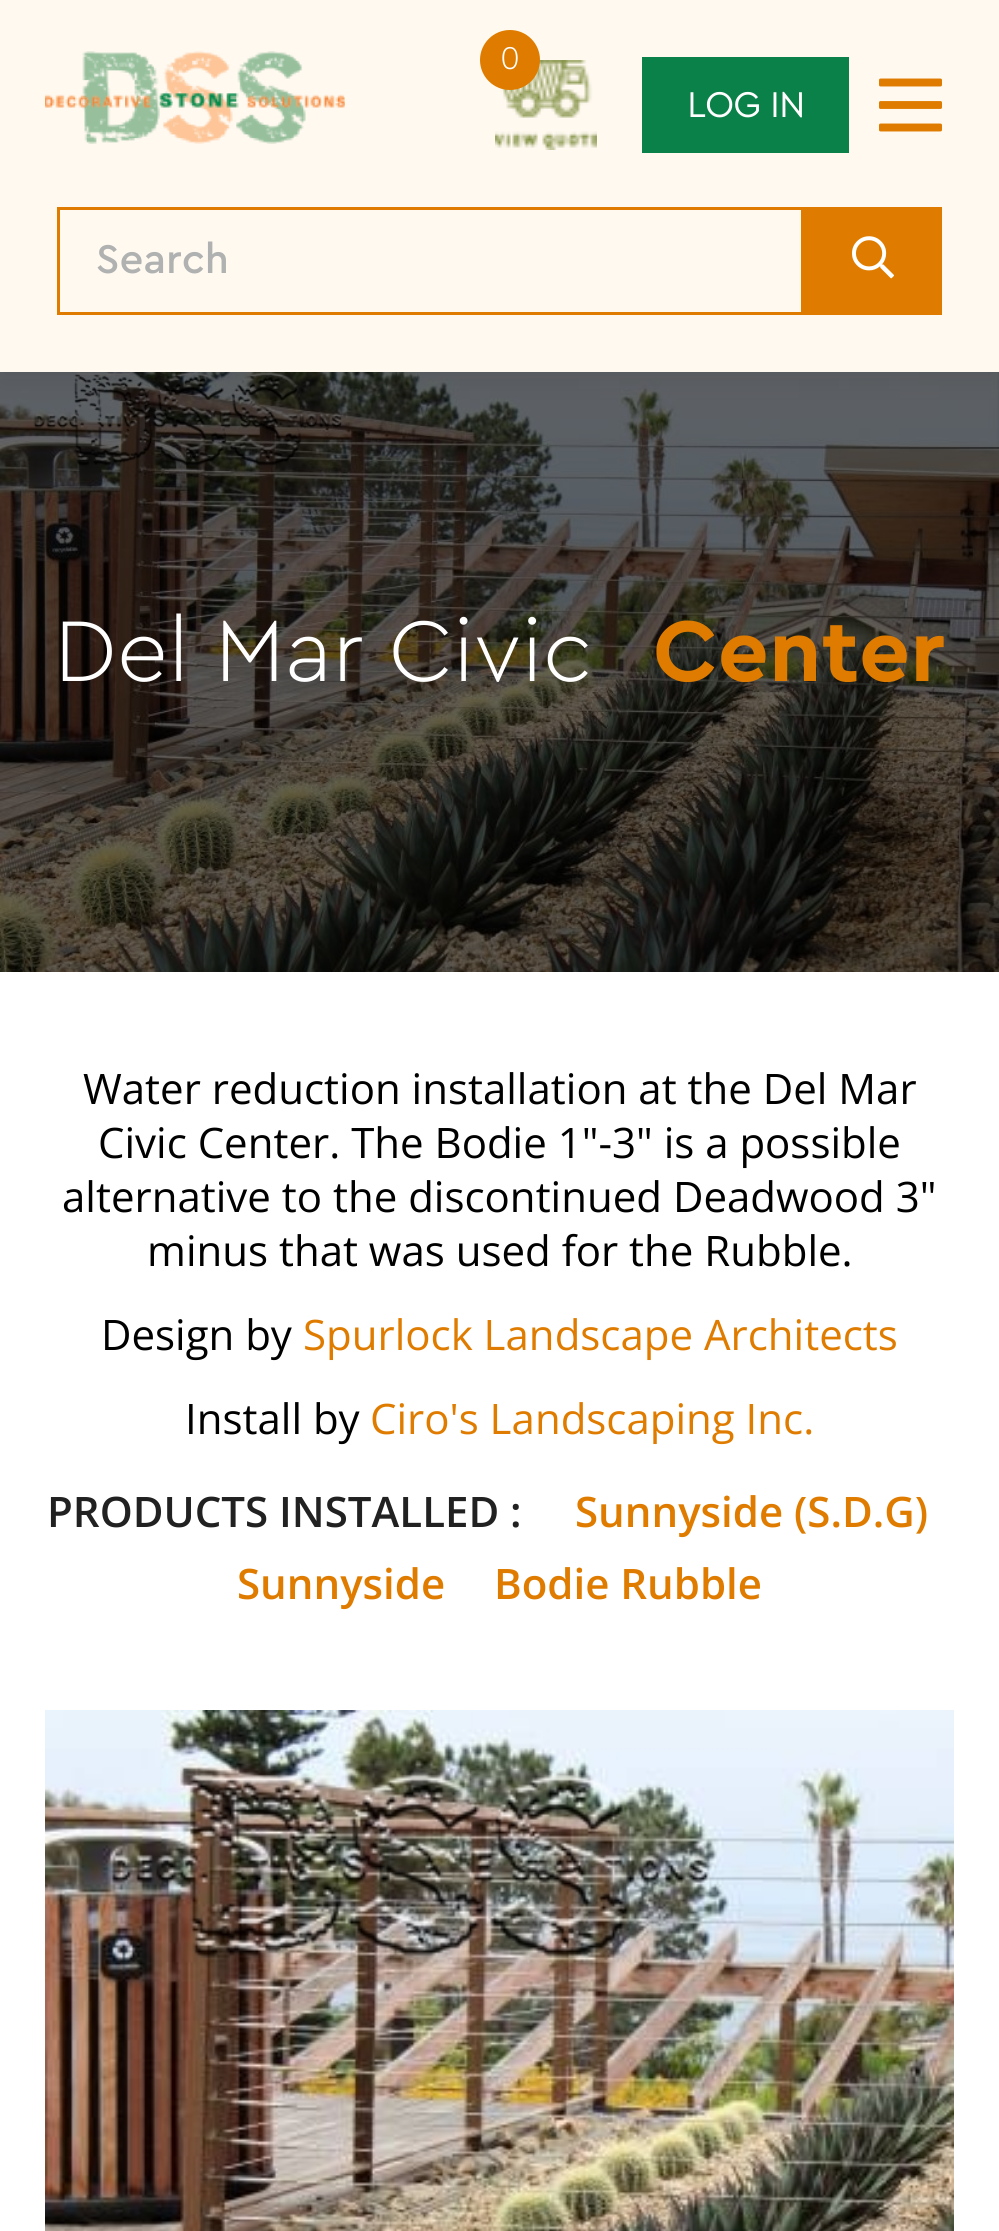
#include <cairo.h>
#include <math.h>
#include <stddef.h>

typedef struct { double x, y; const char *s; } line_t;

static void ink(cairo_t *ctx, unsigned color) {
    cairo_set_source_rgb(ctx, (color >> 16) / 255.0, (color >> 8 & 255) / 255.0, (color & 255) / 255.0);
}

static void round_path(cairo_t *ctx, double x, double y, double w, double h, double r) {
    cairo_new_sub_path(ctx);
    cairo_arc(ctx, x + w - r, y + h - r, r, 0, M_PI / 2);
    cairo_arc(ctx, x + r, y + h - r, r, M_PI / 2, M_PI);
    cairo_arc(ctx, x + r, y + r, r, M_PI, 1.5 * M_PI);
    cairo_arc(ctx, x + w - r, y + r, r, 1.5 * M_PI, 2 * M_PI);
    cairo_close_path(ctx);
}

static void blur_box(cairo_t *ctx, double x, double y, double w, double h, double r, double blur, double alpha) {
    cairo_push_group_with_content(ctx, CAIRO_CONTENT_ALPHA);
    cairo_set_operator(ctx, CAIRO_OPERATOR_SOURCE);
    for (int i = 15; i >= -15 && fmin(w, h) + blur * i / 3 > 0; i -= 2) {
        double e = blur * i / 6;
        cairo_set_source_rgba(ctx, 0, 0, 0, alpha * erfc((i - 1) / 8.5) / 2);
        round_path(ctx, x - e, y - e, w + 2 * e, h + 2 * e, fmax(0, fmin(r + e + blur * .6, fmin(w, h) / 2 + e)));
        cairo_fill(ctx);
    }
    cairo_pattern_t *soft = cairo_pop_group(ctx);
    cairo_mask(ctx, soft);
    cairo_pattern_destroy(soft);
}

static void paste(cairo_t *ctx, const char *path, double x, double y, double w, double h) {
    cairo_surface_t *image = cairo_image_surface_create_from_png(path);
    cairo_save(ctx);
    cairo_set_source_surface(ctx, image, x, y);
    cairo_rectangle(ctx, x, y, w, h);
    cairo_fill(ctx);
    cairo_restore(ctx);
    cairo_surface_destroy(image);
}

int main(void) {
    cairo_surface_t *surface = cairo_image_surface_create(CAIRO_FORMAT_RGB24, 999, 2231);
    cairo_t *ctx = cairo_create(surface);
    cairo_font_options_t *options = cairo_font_options_create();
    cairo_font_options_set_hint_metrics(options, CAIRO_HINT_METRICS_OFF);
    cairo_font_options_set_hint_style(options, CAIRO_HINT_STYLE_NONE);
    cairo_set_font_options(ctx, options);
    cairo_set_miter_limit(ctx, 4);
    ink(ctx, 0xFFFFFF);
    cairo_paint(ctx);
    paste(ctx, "media/5.png", 0, 372, 999, 600);
    ink(ctx, 0x000000);
    blur_box(ctx, 0, 6, 999, 372, 0, 15, 0.1);
    ink(ctx, 0xFFF9F0);
    cairo_rectangle(ctx, 0, 0, 999, 372);
    cairo_fill(ctx);
    paste(ctx, "media/1.png", 45, 51, 300, 93);
    paste(ctx, "media/2.png", 495, 60, 102, 90);
    ink(ctx, 0xDF7C00);
    cairo_arc(ctx, 510, 60, 30, 0, 2 * M_PI);
    cairo_fill(ctx);
    cairo_select_font_face(ctx, "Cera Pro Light", CAIRO_FONT_SLANT_NORMAL, CAIRO_FONT_WEIGHT_NORMAL);
    cairo_set_font_size(ctx, 33);
    ink(ctx, 0xFFFFFF);
    cairo_move_to(ctx, 500, 69);
    cairo_show_text(ctx, "0");
    ink(ctx, 0x098148);
    cairo_rectangle(ctx, 642, 57, 207, 96);
    cairo_fill(ctx);
    cairo_select_font_face(ctx, "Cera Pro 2", CAIRO_FONT_SLANT_NORMAL, CAIRO_FONT_WEIGHT_BOLD);
    cairo_set_font_size(ctx, 36);
    ink(ctx, 0xFFFFFF);
    cairo_move_to(ctx, 687, 117);
    cairo_show_text(ctx, "LOG IN");
    paste(ctx, "media/3.png", 879, 78, 63, 54);
    cairo_rectangle(ctx, 58.5, 208.5, 744, 105);
    ink(ctx, 0xDF7C00);
    cairo_set_line_width(ctx, 3);
    cairo_stroke(ctx);
    cairo_select_font_face(ctx, "Cera Pro Medium", CAIRO_FONT_SLANT_NORMAL, CAIRO_FONT_WEIGHT_NORMAL);
    cairo_set_font_size(ctx, 42);
    ink(ctx, 0xB0B2B2);
    cairo_move_to(ctx, 96, 273);
    cairo_show_text(ctx, "Search");
    ink(ctx, 0xDF7C00);
    cairo_rectangle(ctx, 804, 207, 138, 108);
    cairo_fill(ctx);
    paste(ctx, "media/4.png", 852, 236, 42, 43);
    cairo_select_font_face(ctx, "Cera Pro Light", CAIRO_FONT_SLANT_NORMAL, CAIRO_FONT_WEIGHT_NORMAL);
    cairo_set_font_size(ctx, 90);
    ink(ctx, 0xFFFFFF);
    cairo_move_to(ctx, 54, 681);
    cairo_show_text(ctx, "Del Mar Civic");
    cairo_select_font_face(ctx, "Cera Pro", CAIRO_FONT_SLANT_NORMAL, CAIRO_FONT_WEIGHT_BOLD);
    ink(ctx, 0xDF7C00);
    cairo_move_to(ctx, 653, 681);
    cairo_show_text(ctx, "Center");
    cairo_select_font_face(ctx, "Open Sans", CAIRO_FONT_SLANT_NORMAL, CAIRO_FONT_WEIGHT_NORMAL);
    cairo_set_font_size(ctx, 42);
    ink(ctx, 0x000000);
    {
        static const line_t items[] = {
            {83, 1104, "Water reduction installation at the Del Mar"},
            {98, 1158, "Civic Center. The Bodie 1\"-3\" is a possible"},
            {62, 1212, "alternative to the discontinued Deadwood 3\""},
            {147, 1266, "minus that was used for the Rubble."},
            {101, 1350, "Design by"},
        };
        for (size_t i = 0; i < sizeof items / sizeof *items; i++) {
            cairo_move_to(ctx, items[i].x, items[i].y);
            cairo_show_text(ctx, items[i].s);
        }
    }
    ink(ctx, 0xDF7C00);
    cairo_move_to(ctx, 303, 1350);
    cairo_show_text(ctx, "Spurlock Landscape Architects");
    ink(ctx, 0x000000);
    cairo_move_to(ctx, 185, 1434);
    cairo_show_text(ctx, "Install by");
    ink(ctx, 0xDF7C00);
    cairo_move_to(ctx, 370, 1434);
    cairo_show_text(ctx, "Ciro's Landscaping Inc.");
    cairo_select_font_face(ctx, "Open Sans SemiBold", CAIRO_FONT_SLANT_NORMAL, CAIRO_FONT_WEIGHT_NORMAL);
    ink(ctx, 0x212121);
    cairo_move_to(ctx, 47, 1527);
    cairo_show_text(ctx, "PRODUCTS INSTALLED :");
    ink(ctx, 0xDF7C00);
    {
        static const line_t items[] = {
            {575, 1527, "Sunnyside (S.D.G)"},
            {237, 1599, "Sunnyside"},
            {494, 1599, "Bodie Rubble"},
        };
        for (size_t i = 0; i < sizeof items / sizeof *items; i++) {
            cairo_move_to(ctx, items[i].x, items[i].y);
            cairo_show_text(ctx, items[i].s);
        }
    }
    paste(ctx, "media/6.png", 45, 1710, 909, 521);
    cairo_surface_write_to_png(surface, "image.png");
    cairo_font_options_destroy(options);
    cairo_destroy(ctx);
    cairo_surface_destroy(surface);
    return 0;
}
